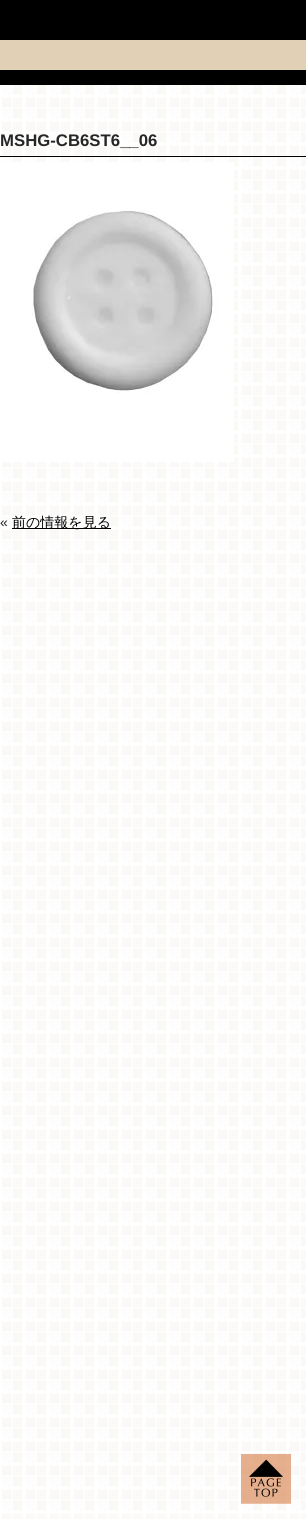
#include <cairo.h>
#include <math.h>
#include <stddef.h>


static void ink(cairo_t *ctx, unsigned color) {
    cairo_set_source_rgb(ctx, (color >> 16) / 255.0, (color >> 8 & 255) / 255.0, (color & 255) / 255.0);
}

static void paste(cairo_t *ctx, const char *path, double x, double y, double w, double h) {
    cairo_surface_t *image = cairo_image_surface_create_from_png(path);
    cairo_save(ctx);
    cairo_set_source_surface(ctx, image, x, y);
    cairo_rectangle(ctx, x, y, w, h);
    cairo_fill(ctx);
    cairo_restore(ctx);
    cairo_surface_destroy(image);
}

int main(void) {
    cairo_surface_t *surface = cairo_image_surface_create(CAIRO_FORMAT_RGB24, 306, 1519);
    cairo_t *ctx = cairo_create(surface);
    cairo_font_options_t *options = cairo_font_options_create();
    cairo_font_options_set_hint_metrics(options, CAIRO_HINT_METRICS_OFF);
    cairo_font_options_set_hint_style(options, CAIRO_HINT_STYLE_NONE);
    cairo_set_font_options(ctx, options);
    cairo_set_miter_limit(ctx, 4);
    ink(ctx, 0xFFFFFF);
    cairo_paint(ctx);
    ink(ctx, 0x000000);
    cairo_rectangle(ctx, 0, 0, 306, 85);
    cairo_fill(ctx);
    ink(ctx, 0xE1CFB6);
    cairo_rectangle(ctx, 0, 40, 306, 30);
    cairo_fill(ctx);
    paste(ctx, "media/1.png", 2, 85, 304, 1434);
    ink(ctx, 0x000000);
    cairo_rectangle(ctx, 0, 156, 306, 1);
    cairo_fill(ctx);
    cairo_select_font_face(ctx, "Liberation Sans", CAIRO_FONT_SLANT_NORMAL, CAIRO_FONT_WEIGHT_BOLD);
    cairo_set_font_size(ctx, 16.75);
    ink(ctx, 0x262626);
    cairo_move_to(ctx, 0, 146);
    cairo_show_text(ctx, "MSHG-CB6ST6__06");
    paste(ctx, "media/2.png", 2, 162, 232, 300);
    cairo_select_font_face(ctx, "Liberation Sans", CAIRO_FONT_SLANT_NORMAL, CAIRO_FONT_WEIGHT_NORMAL);
    cairo_set_font_size(ctx, 14);
    cairo_move_to(ctx, 0, 527);
    cairo_show_text(ctx, "«");
    ink(ctx, 0x000000);
    cairo_rectangle(ctx, 12, 528, 99, 1);
    cairo_fill(ctx);
    cairo_select_font_face(ctx, "WenQuanYi Zen Hei Medium", CAIRO_FONT_SLANT_NORMAL, CAIRO_FONT_WEIGHT_NORMAL);
    cairo_move_to(ctx, 12, 527);
    cairo_show_text(ctx, "前の情報を見る");
    paste(ctx, "media/3.png", 241, 1454, 50, 50);
    cairo_surface_write_to_png(surface, "image.png");
    cairo_font_options_destroy(options);
    cairo_destroy(ctx);
    cairo_surface_destroy(surface);
    return 0;
}
